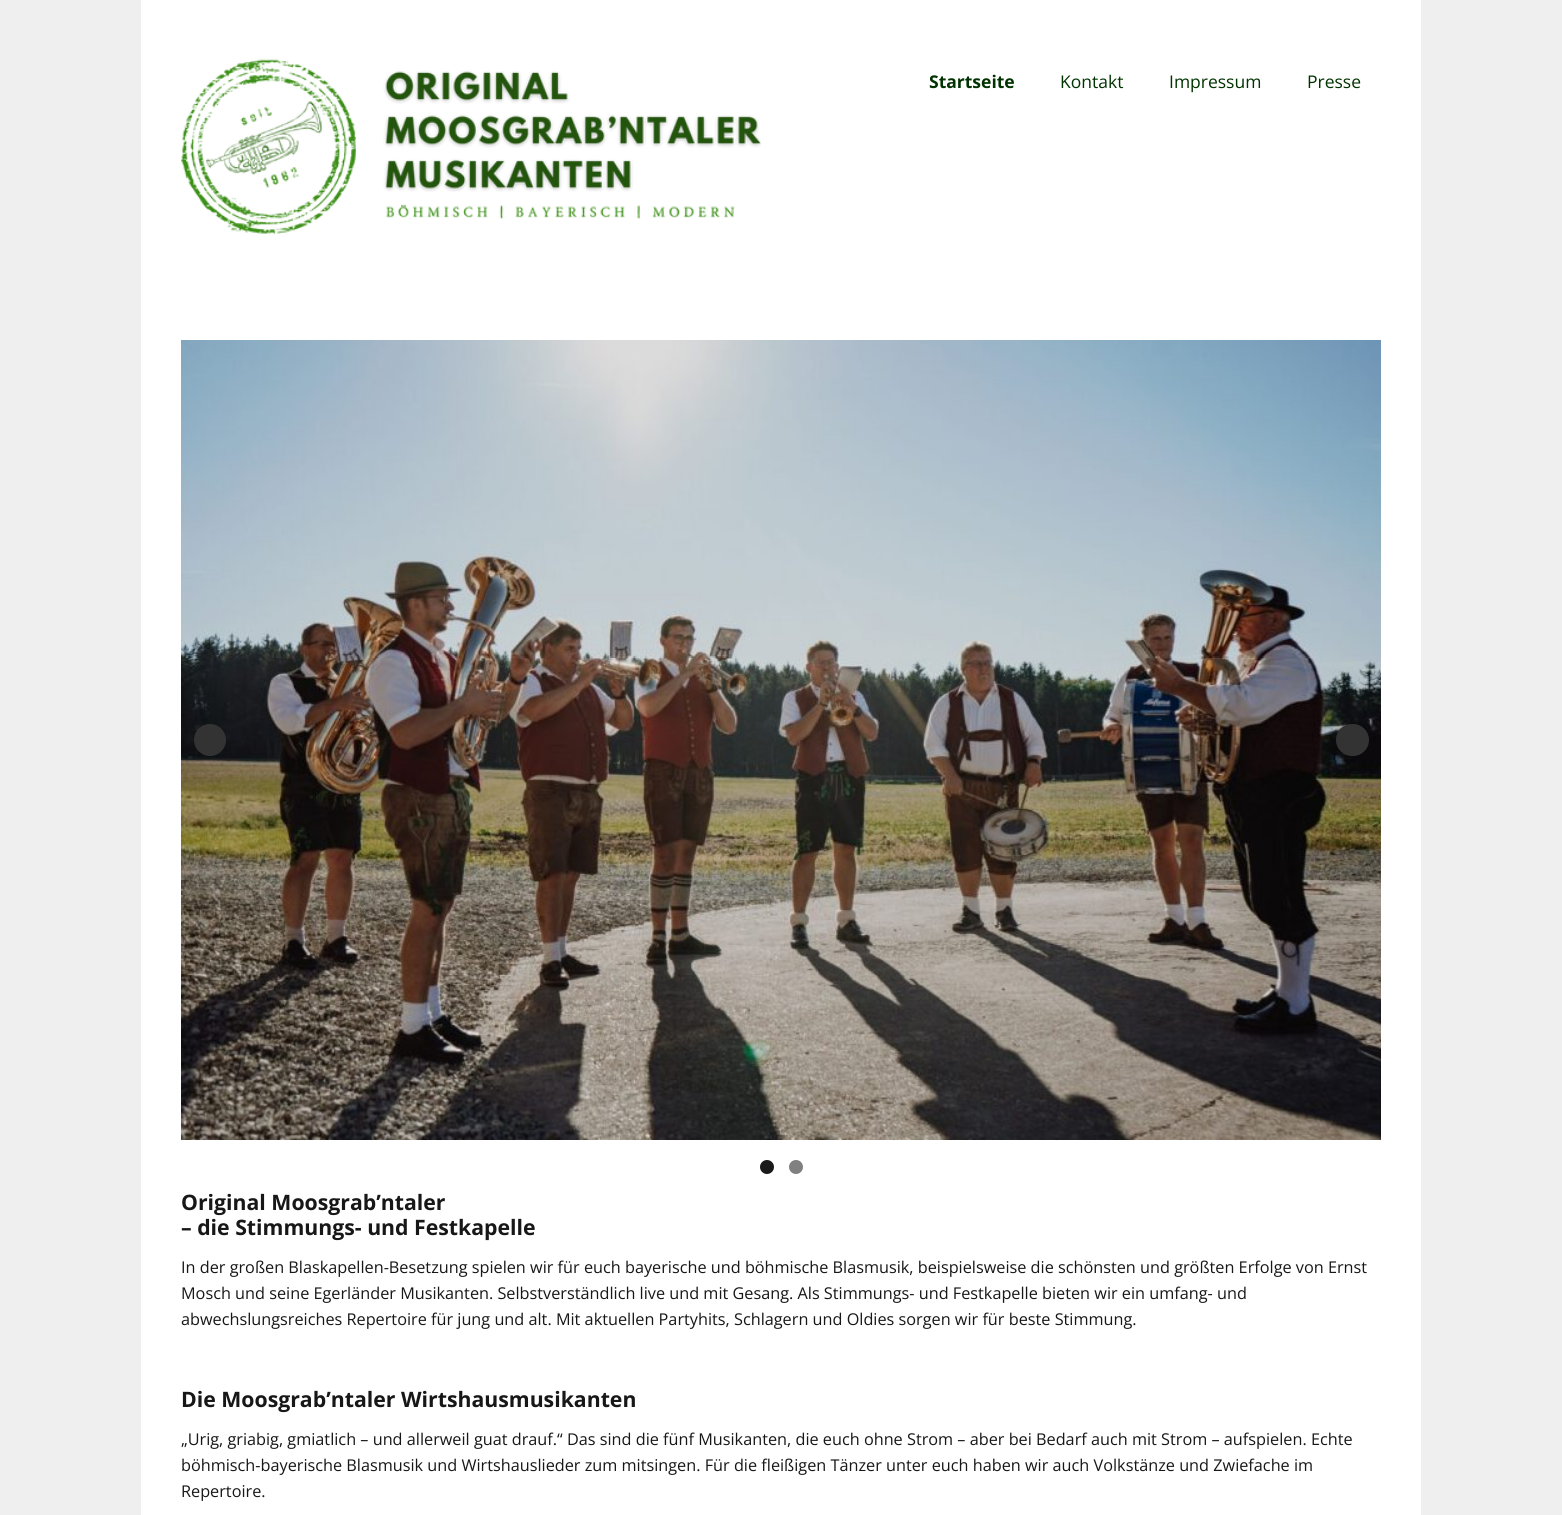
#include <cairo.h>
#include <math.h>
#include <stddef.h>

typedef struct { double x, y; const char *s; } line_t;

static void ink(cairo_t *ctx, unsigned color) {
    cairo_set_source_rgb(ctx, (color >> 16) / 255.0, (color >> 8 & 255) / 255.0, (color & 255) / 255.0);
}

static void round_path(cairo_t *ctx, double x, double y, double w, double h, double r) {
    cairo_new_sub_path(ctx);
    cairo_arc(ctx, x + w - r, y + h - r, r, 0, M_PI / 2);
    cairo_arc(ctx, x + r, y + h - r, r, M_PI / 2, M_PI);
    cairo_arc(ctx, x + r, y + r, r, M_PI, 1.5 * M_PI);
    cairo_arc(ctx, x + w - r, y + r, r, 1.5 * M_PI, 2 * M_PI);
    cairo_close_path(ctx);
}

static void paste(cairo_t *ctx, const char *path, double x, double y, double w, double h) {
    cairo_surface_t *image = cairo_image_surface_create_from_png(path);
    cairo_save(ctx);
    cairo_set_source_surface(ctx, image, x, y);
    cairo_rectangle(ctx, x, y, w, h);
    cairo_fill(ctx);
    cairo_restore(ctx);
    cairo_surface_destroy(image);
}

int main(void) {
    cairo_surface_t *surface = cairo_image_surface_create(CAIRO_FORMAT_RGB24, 1562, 1515);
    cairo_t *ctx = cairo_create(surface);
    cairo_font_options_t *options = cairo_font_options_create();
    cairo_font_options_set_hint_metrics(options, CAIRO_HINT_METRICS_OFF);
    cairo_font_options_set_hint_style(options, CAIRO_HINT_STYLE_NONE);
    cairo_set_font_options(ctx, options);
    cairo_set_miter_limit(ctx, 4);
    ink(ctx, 0xEFEFEF);
    cairo_paint(ctx);
    ink(ctx, 0xFFFFFF);
    cairo_rectangle(ctx, 141, 0, 1280, 1515);
    cairo_fill(ctx);
    paste(ctx, "media/1.png", 181, 59, 580, 176);
    cairo_select_font_face(ctx, "Open Sans", CAIRO_FONT_SLANT_NORMAL, CAIRO_FONT_WEIGHT_BOLD);
    cairo_set_font_size(ctx, 17.5);
    ink(ctx, 0x003300);
    cairo_move_to(ctx, 929, 88);
    cairo_show_text(ctx, "Startseite");
    cairo_select_font_face(ctx, "Open Sans", CAIRO_FONT_SLANT_NORMAL, CAIRO_FONT_WEIGHT_NORMAL);
    {
        static const line_t items[] = {
            {1060, 88, "Kontakt"},
            {1169, 88, "Impressum"},
            {1307, 88, "Presse"},
        };
        for (size_t i = 0; i < sizeof items / sizeof *items; i++) {
            cairo_move_to(ctx, items[i].x, items[i].y);
            cairo_show_text(ctx, items[i].s);
        }
    }
    paste(ctx, "media/2.png", 181, 340, 1200, 800);
    ink(ctx, 0x333333);
    cairo_arc(ctx, 210, 740, 16, 0, 2 * M_PI);
    cairo_fill(ctx);
    round_path(ctx, 1336, 724, 33, 32, 16);
    cairo_fill(ctx);
    ink(ctx, 0x1A1A1A);
    cairo_arc(ctx, 767, 1167, 7, 0, 2 * M_PI);
    cairo_fill(ctx);
    ink(ctx, 0x808080);
    cairo_arc(ctx, 796, 1167, 7, 0, 2 * M_PI);
    cairo_fill(ctx);
    cairo_select_font_face(ctx, "Open Sans", CAIRO_FONT_SLANT_NORMAL, CAIRO_FONT_WEIGHT_BOLD);
    cairo_set_font_size(ctx, 21.25);
    ink(ctx, 0x171717);
    cairo_move_to(ctx, 181, 1210);
    cairo_show_text(ctx, "Original Moosgrab’ntaler");
    cairo_move_to(ctx, 181, 1235);
    cairo_show_text(ctx, "– die Stimmungs- und Festkapelle");
    cairo_select_font_face(ctx, "Open Sans", CAIRO_FONT_SLANT_NORMAL, CAIRO_FONT_WEIGHT_NORMAL);
    cairo_set_font_size(ctx, 16.25);
    {
        static const line_t items[] = {
            {181, 1273, "In der großen Blaskapellen-Besetzung spielen wir für euch bayerische und böhmische Blasmusik, beispielsweise die schönsten und größten Erfolge von Ernst"},
            {181, 1299, "Mosch und seine Egerländer Musikanten. Selbstverständlich live und mit Gesang. Als Stimmungs- und Festkapelle bieten wir ein umfang- und"},
            {181, 1325, "abwechslungsreiches Repertoire für jung und alt. Mit aktuellen Partyhits, Schlagern und Oldies sorgen wir für beste Stimmung."},
        };
        for (size_t i = 0; i < sizeof items / sizeof *items; i++) {
            cairo_move_to(ctx, items[i].x, items[i].y);
            cairo_show_text(ctx, items[i].s);
        }
    }
    cairo_select_font_face(ctx, "Open Sans", CAIRO_FONT_SLANT_NORMAL, CAIRO_FONT_WEIGHT_BOLD);
    cairo_set_font_size(ctx, 21.25);
    cairo_move_to(ctx, 181, 1407);
    cairo_show_text(ctx, "Die Moosgrab’ntaler Wirtshausmusikanten");
    cairo_select_font_face(ctx, "Open Sans", CAIRO_FONT_SLANT_NORMAL, CAIRO_FONT_WEIGHT_NORMAL);
    cairo_set_font_size(ctx, 16.25);
    {
        static const line_t items[] = {
            {181, 1445, "„Urig, griabig, gmiatlich – und allerweil guat drauf.“ Das sind die fünf Musikanten, die euch ohne Strom – aber bei Bedarf auch mit Strom – aufspielen. Echte"},
            {181, 1471, "böhmisch-bayerische Blasmusik und Wirtshauslieder zum mitsingen. Für die fleißigen Tänzer unter euch haben wir auch Volkstänze und Zwiefache im"},
            {181, 1497, "Repertoire."},
        };
        for (size_t i = 0; i < sizeof items / sizeof *items; i++) {
            cairo_move_to(ctx, items[i].x, items[i].y);
            cairo_show_text(ctx, items[i].s);
        }
    }
    cairo_surface_write_to_png(surface, "image.png");
    cairo_font_options_destroy(options);
    cairo_destroy(ctx);
    cairo_surface_destroy(surface);
    return 0;
}
